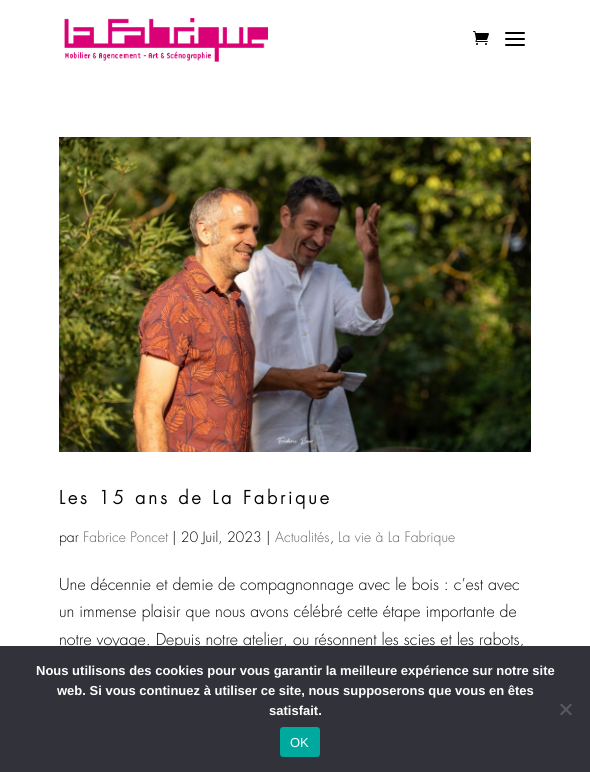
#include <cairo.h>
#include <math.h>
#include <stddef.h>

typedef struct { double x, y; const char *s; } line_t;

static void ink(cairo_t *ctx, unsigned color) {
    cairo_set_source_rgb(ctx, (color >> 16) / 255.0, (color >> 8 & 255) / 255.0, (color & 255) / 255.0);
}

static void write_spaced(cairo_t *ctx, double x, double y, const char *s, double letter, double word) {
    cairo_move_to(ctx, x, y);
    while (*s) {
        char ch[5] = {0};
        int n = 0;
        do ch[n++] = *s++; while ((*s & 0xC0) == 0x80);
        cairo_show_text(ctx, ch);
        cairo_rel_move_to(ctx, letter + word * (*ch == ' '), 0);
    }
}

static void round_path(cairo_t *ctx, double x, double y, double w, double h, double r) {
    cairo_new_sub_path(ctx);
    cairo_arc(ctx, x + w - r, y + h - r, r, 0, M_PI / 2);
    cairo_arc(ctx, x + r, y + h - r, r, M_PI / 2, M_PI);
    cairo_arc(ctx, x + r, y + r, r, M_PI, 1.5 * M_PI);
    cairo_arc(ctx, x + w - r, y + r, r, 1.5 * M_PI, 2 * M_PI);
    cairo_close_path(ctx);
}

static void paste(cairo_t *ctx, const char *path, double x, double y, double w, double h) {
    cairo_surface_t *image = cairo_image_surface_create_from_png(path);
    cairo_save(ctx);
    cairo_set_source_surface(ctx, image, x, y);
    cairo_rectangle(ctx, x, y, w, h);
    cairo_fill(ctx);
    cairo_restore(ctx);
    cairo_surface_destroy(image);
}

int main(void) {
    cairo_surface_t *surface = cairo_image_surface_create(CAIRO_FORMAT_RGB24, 590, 772);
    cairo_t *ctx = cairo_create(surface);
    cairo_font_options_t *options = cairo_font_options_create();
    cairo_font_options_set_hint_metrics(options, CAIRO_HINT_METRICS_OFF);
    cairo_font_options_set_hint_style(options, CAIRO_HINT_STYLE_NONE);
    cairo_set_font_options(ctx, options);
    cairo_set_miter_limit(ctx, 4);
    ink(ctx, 0xFFFFFF);
    cairo_paint(ctx);
    paste(ctx, "media/1.png", 64, 18, 204, 44);
    paste(ctx, "media/2.png", 473, 31, 16, 14);
    paste(ctx, "media/3.png", 505, 32, 20, 14);
    paste(ctx, "media/4.png", 59, 137, 472, 315);
    cairo_select_font_face(ctx, "Futura", CAIRO_FONT_SLANT_NORMAL, CAIRO_FONT_WEIGHT_BOLD);
    cairo_set_font_size(ctx, 18);
    ink(ctx, 0x000000);
    write_spaced(ctx, 59, 504, "Les 15 ans de La Fabrique", 3, 0);
    cairo_select_font_face(ctx, "Futura Light", CAIRO_FONT_SLANT_NORMAL, CAIRO_FONT_WEIGHT_NORMAL);
    cairo_set_font_size(ctx, 14);
    cairo_move_to(ctx, 59, 542);
    cairo_show_text(ctx, "par");
    ink(ctx, 0x666666);
    cairo_move_to(ctx, 83, 542);
    cairo_show_text(ctx, "Fabrice Poncet");
    ink(ctx, 0x000000);
    cairo_move_to(ctx, 172, 542);
    cairo_show_text(ctx, "| 20 Juil, 2023 |");
    ink(ctx, 0x666666);
    cairo_move_to(ctx, 275, 542);
    cairo_show_text(ctx, "Actualités");
    ink(ctx, 0x000000);
    cairo_move_to(ctx, 330, 542);
    cairo_show_text(ctx, ",");
    ink(ctx, 0x666666);
    cairo_move_to(ctx, 338, 542);
    cairo_show_text(ctx, "La vie à La Fabrique");
    cairo_set_font_size(ctx, 16);
    ink(ctx, 0x000000);
    {
        static const line_t items[] = {
            {59, 590, "Une décennie et demie de compagnonnage avec le bois : c’est avec"},
            {59, 617, "un immense plaisir que nous avons célébré cette étape importante de"},
            {59, 645, "notre voyage. Depuis notre atelier, ou résonnent les scies et les rabots,"},
        };
        for (size_t i = 0; i < sizeof items / sizeof *items; i++) {
            cairo_move_to(ctx, items[i].x, items[i].y);
            cairo_show_text(ctx, items[i].s);
        }
    }
    ink(ctx, 0x32323A);
    cairo_rectangle(ctx, 0, 646, 590, 126);
    cairo_fill(ctx);
    cairo_select_font_face(ctx, "Liberation Sans", CAIRO_FONT_SLANT_NORMAL, CAIRO_FONT_WEIGHT_BOLD);
    cairo_set_font_size(ctx, 13);
    ink(ctx, 0xFFFFFF);
    {
        static const line_t items[] = {
            {36, 675, "Nous utilisons des cookies pour vous garantir la meilleure expérience sur notre site"},
            {57, 695, "web. Si vous continuez à utiliser ce site, nous supposerons que vous en êtes"},
            {269, 715, "satisfait."},
        };
        for (size_t i = 0; i < sizeof items / sizeof *items; i++) {
            cairo_move_to(ctx, items[i].x, items[i].y);
            cairo_show_text(ctx, items[i].s);
        }
    }
    ink(ctx, 0x59595D);
    cairo_new_path(ctx);
    cairo_move_to(ctx, 570.5, 703.5);
    cairo_line_to(ctx, 572, 705);
    cairo_line_to(ctx, 561.5, 715.5);
    cairo_line_to(ctx, 560, 714);
    cairo_close_path(ctx);
    cairo_fill(ctx);
    cairo_new_path(ctx);
    cairo_move_to(ctx, 560, 705);
    cairo_line_to(ctx, 561.5, 703.5);
    cairo_line_to(ctx, 572, 714);
    cairo_line_to(ctx, 570.5, 715.5);
    cairo_close_path(ctx);
    cairo_fill(ctx);
    ink(ctx, 0x00A99D);
    round_path(ctx, 280, 727, 40, 30, 3);
    cairo_fill(ctx);
    cairo_select_font_face(ctx, "Liberation Sans", CAIRO_FONT_SLANT_NORMAL, CAIRO_FONT_WEIGHT_NORMAL);
    ink(ctx, 0xFFFFFF);
    cairo_move_to(ctx, 290, 747);
    cairo_show_text(ctx, "OK");
    cairo_surface_write_to_png(surface, "image.png");
    cairo_font_options_destroy(options);
    cairo_destroy(ctx);
    cairo_surface_destroy(surface);
    return 0;
}
